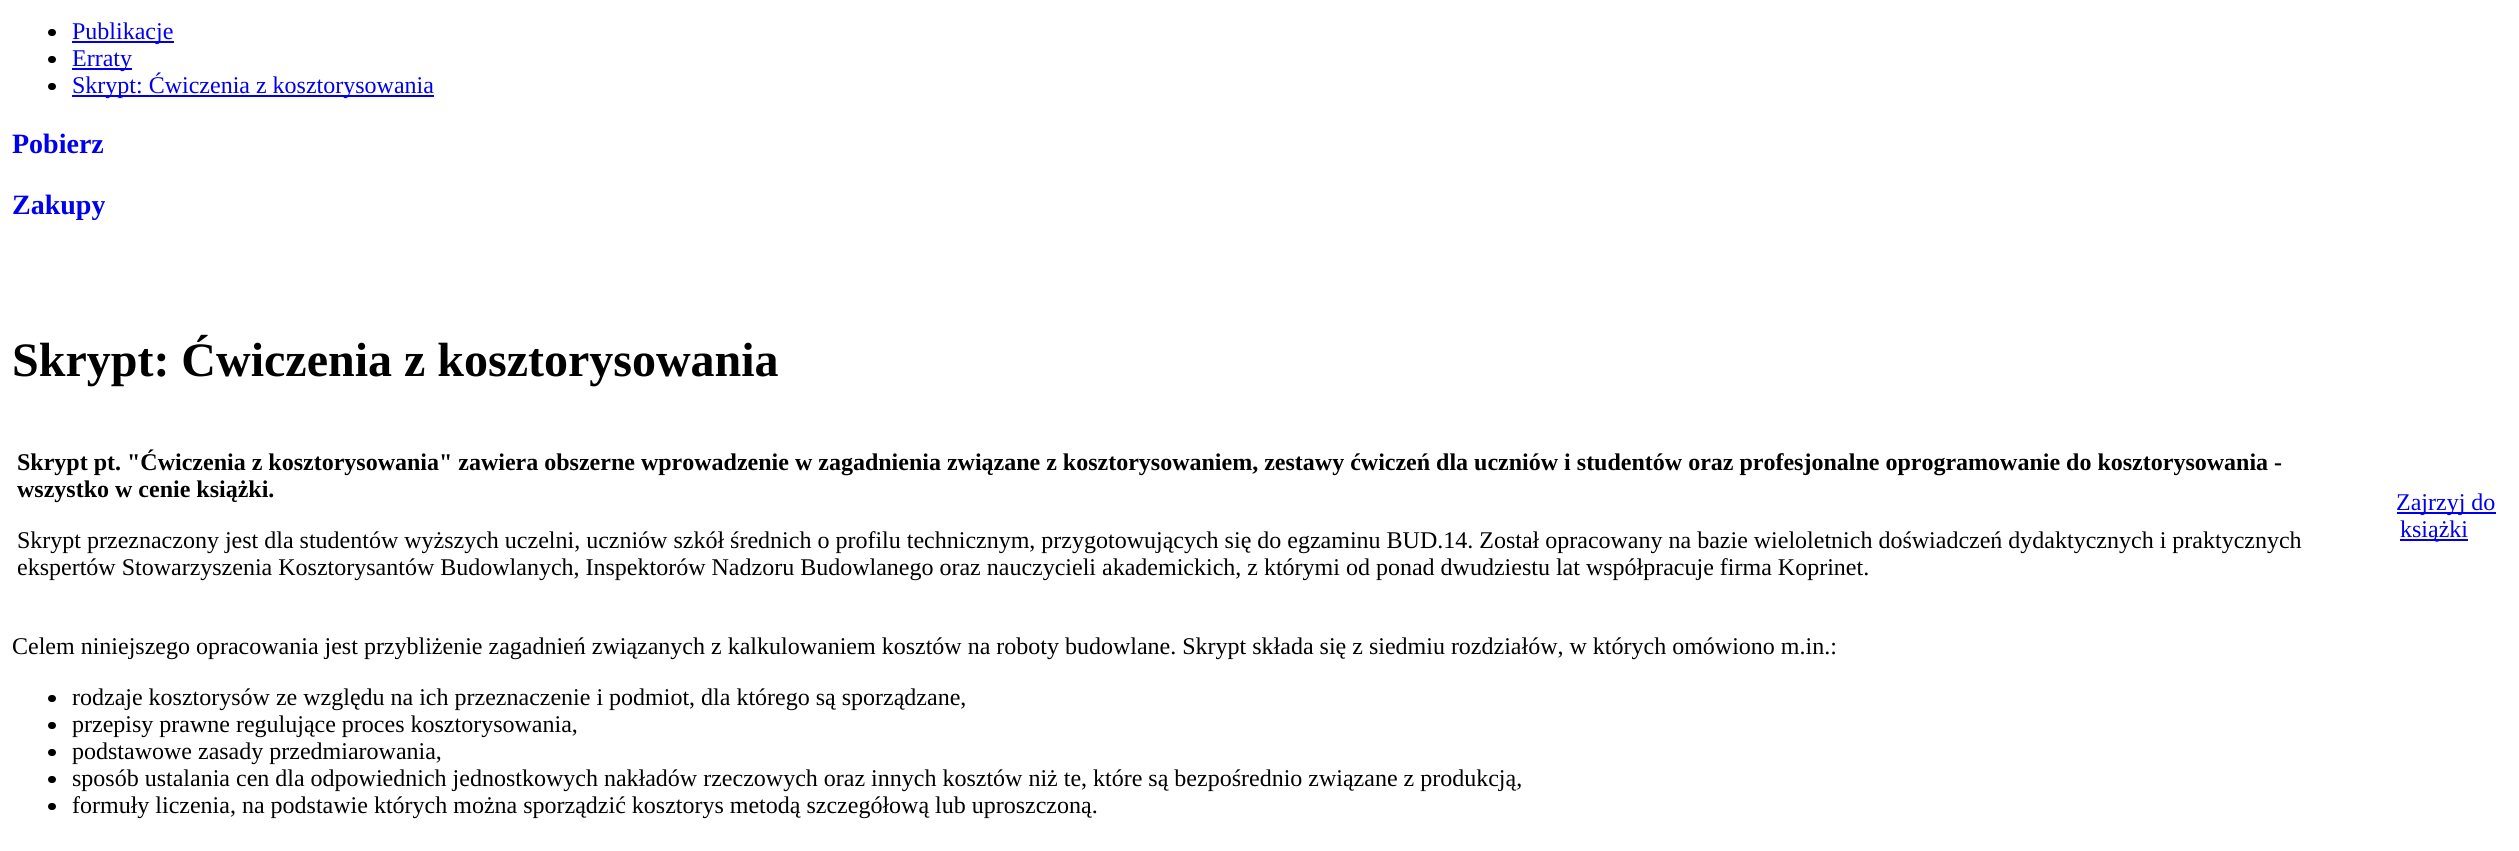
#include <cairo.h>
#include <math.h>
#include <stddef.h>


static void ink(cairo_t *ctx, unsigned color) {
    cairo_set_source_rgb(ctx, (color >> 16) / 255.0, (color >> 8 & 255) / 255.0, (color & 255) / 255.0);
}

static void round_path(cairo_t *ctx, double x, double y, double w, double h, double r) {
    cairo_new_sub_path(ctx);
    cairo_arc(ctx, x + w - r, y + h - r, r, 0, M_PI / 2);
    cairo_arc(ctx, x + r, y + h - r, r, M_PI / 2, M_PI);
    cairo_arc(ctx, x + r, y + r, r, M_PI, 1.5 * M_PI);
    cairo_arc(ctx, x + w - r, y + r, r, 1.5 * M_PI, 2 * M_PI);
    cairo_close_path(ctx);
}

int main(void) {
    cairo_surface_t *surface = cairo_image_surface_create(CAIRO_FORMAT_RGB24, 2519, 851);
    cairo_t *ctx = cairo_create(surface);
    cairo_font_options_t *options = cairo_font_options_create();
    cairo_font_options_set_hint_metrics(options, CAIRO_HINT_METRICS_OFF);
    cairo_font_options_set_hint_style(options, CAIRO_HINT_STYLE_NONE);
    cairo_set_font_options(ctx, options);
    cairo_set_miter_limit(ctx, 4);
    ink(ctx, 0xFFFFFF);
    cairo_paint(ctx);
    ink(ctx, 0x000000);
    round_path(ctx, 48, 29, 8, 7, 3.5);
    cairo_fill(ctx);
    ink(ctx, 0x0000EE);
    cairo_rectangle(ctx, 72, 41, 102, 2);
    cairo_fill(ctx);
    cairo_select_font_face(ctx, "Liberation Serif", CAIRO_FONT_SLANT_NORMAL, CAIRO_FONT_WEIGHT_NORMAL);
    cairo_set_font_size(ctx, 24);
    cairo_move_to(ctx, 72, 39);
    cairo_show_text(ctx, "Publikacje");
    ink(ctx, 0x000000);
    round_path(ctx, 48, 56, 8, 7, 3.5);
    cairo_fill(ctx);
    ink(ctx, 0x0000EE);
    cairo_rectangle(ctx, 72, 68, 60, 2);
    cairo_fill(ctx);
    cairo_move_to(ctx, 72, 66);
    cairo_show_text(ctx, "Erraty");
    ink(ctx, 0x000000);
    round_path(ctx, 48, 83, 8, 7, 3.5);
    cairo_fill(ctx);
    ink(ctx, 0x0000EE);
    cairo_rectangle(ctx, 72, 95, 362, 2);
    cairo_fill(ctx);
    cairo_move_to(ctx, 72, 93);
    cairo_show_text(ctx, "Skrypt: Ćwiczenia z kosztorysowania");
    cairo_select_font_face(ctx, "Liberation Serif", CAIRO_FONT_SLANT_NORMAL, CAIRO_FONT_WEIGHT_BOLD);
    cairo_set_font_size(ctx, 28);
    cairo_move_to(ctx, 12, 153);
    cairo_show_text(ctx, "Pobierz");
    cairo_move_to(ctx, 12, 214);
    cairo_show_text(ctx, "Zakupy");
    cairo_set_font_size(ctx, 48);
    ink(ctx, 0x000000);
    cairo_move_to(ctx, 12, 376);
    cairo_show_text(ctx, "Skrypt: Ćwiczenia z kosztorysowania");
    cairo_set_font_size(ctx, 24);
    cairo_move_to(ctx, 17, 470);
    cairo_show_text(ctx, "Skrypt pt. \"Ćwiczenia z kosztorysowania\" zawiera obszerne wprowadzenie w zagadnienia związane z kosztorysowaniem, zestawy ćwiczeń dla uczniów i studentów oraz profesjonalne oprogramowanie do kosztorysowania -");
    cairo_move_to(ctx, 17, 497);
    cairo_show_text(ctx, "wszystko w cenie książki.");
    cairo_select_font_face(ctx, "Liberation Serif", CAIRO_FONT_SLANT_NORMAL, CAIRO_FONT_WEIGHT_NORMAL);
    cairo_move_to(ctx, 17, 548);
    cairo_show_text(ctx, "Skrypt przeznaczony jest dla studentów wyższych uczelni, uczniów szkół średnich o profilu technicznym, przygotowujących się do egzaminu BUD.14. Został opracowany na bazie wieloletnich doświadczeń dydaktycznych i praktycznych");
    cairo_move_to(ctx, 17, 575);
    cairo_show_text(ctx, "ekspertów Stowarzyszenia Kosztorysantów Budowlanych, Inspektorów Nadzoru Budowlanego oraz nauczycieli akademickich, z którymi od ponad dwudziestu lat współpracuje firma Koprinet.");
    ink(ctx, 0x0000EE);
    cairo_rectangle(ctx, 2397, 512, 99, 2);
    cairo_fill(ctx);
    cairo_move_to(ctx, 2396, 510);
    cairo_show_text(ctx, "Zajrzyj do");
    cairo_rectangle(ctx, 2400, 539, 68, 2);
    cairo_fill(ctx);
    cairo_move_to(ctx, 2400, 537);
    cairo_show_text(ctx, "książki");
    ink(ctx, 0x000000);
    cairo_move_to(ctx, 12, 654);
    cairo_show_text(ctx, "Celem niniejszego opracowania jest przybliżenie zagadnień związanych z kalkulowaniem kosztów na roboty budowlane. Skrypt składa się z siedmiu rozdziałów, w których omówiono m.in.:");
    round_path(ctx, 48, 695, 8, 7, 3.5);
    cairo_fill(ctx);
    cairo_move_to(ctx, 72, 705);
    cairo_show_text(ctx, "rodzaje kosztorysów ze względu na ich przeznaczenie i podmiot, dla którego są sporządzane,");
    round_path(ctx, 48, 722, 8, 7, 3.5);
    cairo_fill(ctx);
    cairo_move_to(ctx, 72, 732);
    cairo_show_text(ctx, "przepisy prawne regulujące proces kosztorysowania,");
    round_path(ctx, 48, 749, 8, 7, 3.5);
    cairo_fill(ctx);
    cairo_move_to(ctx, 72, 759);
    cairo_show_text(ctx, "podstawowe zasady przedmiarowania,");
    round_path(ctx, 48, 776, 8, 7, 3.5);
    cairo_fill(ctx);
    cairo_move_to(ctx, 72, 786);
    cairo_show_text(ctx, "sposób ustalania cen dla odpowiednich jednostkowych nakładów rzeczowych oraz innych kosztów niż te, które są bezpośrednio związane z produkcją,");
    round_path(ctx, 48, 803, 8, 7, 3.5);
    cairo_fill(ctx);
    cairo_move_to(ctx, 72, 813);
    cairo_show_text(ctx, "formuły liczenia, na podstawie których można sporządzić kosztorys metodą szczegółową lub uproszczoną.");
    cairo_surface_write_to_png(surface, "image.png");
    cairo_font_options_destroy(options);
    cairo_destroy(ctx);
    cairo_surface_destroy(surface);
    return 0;
}
